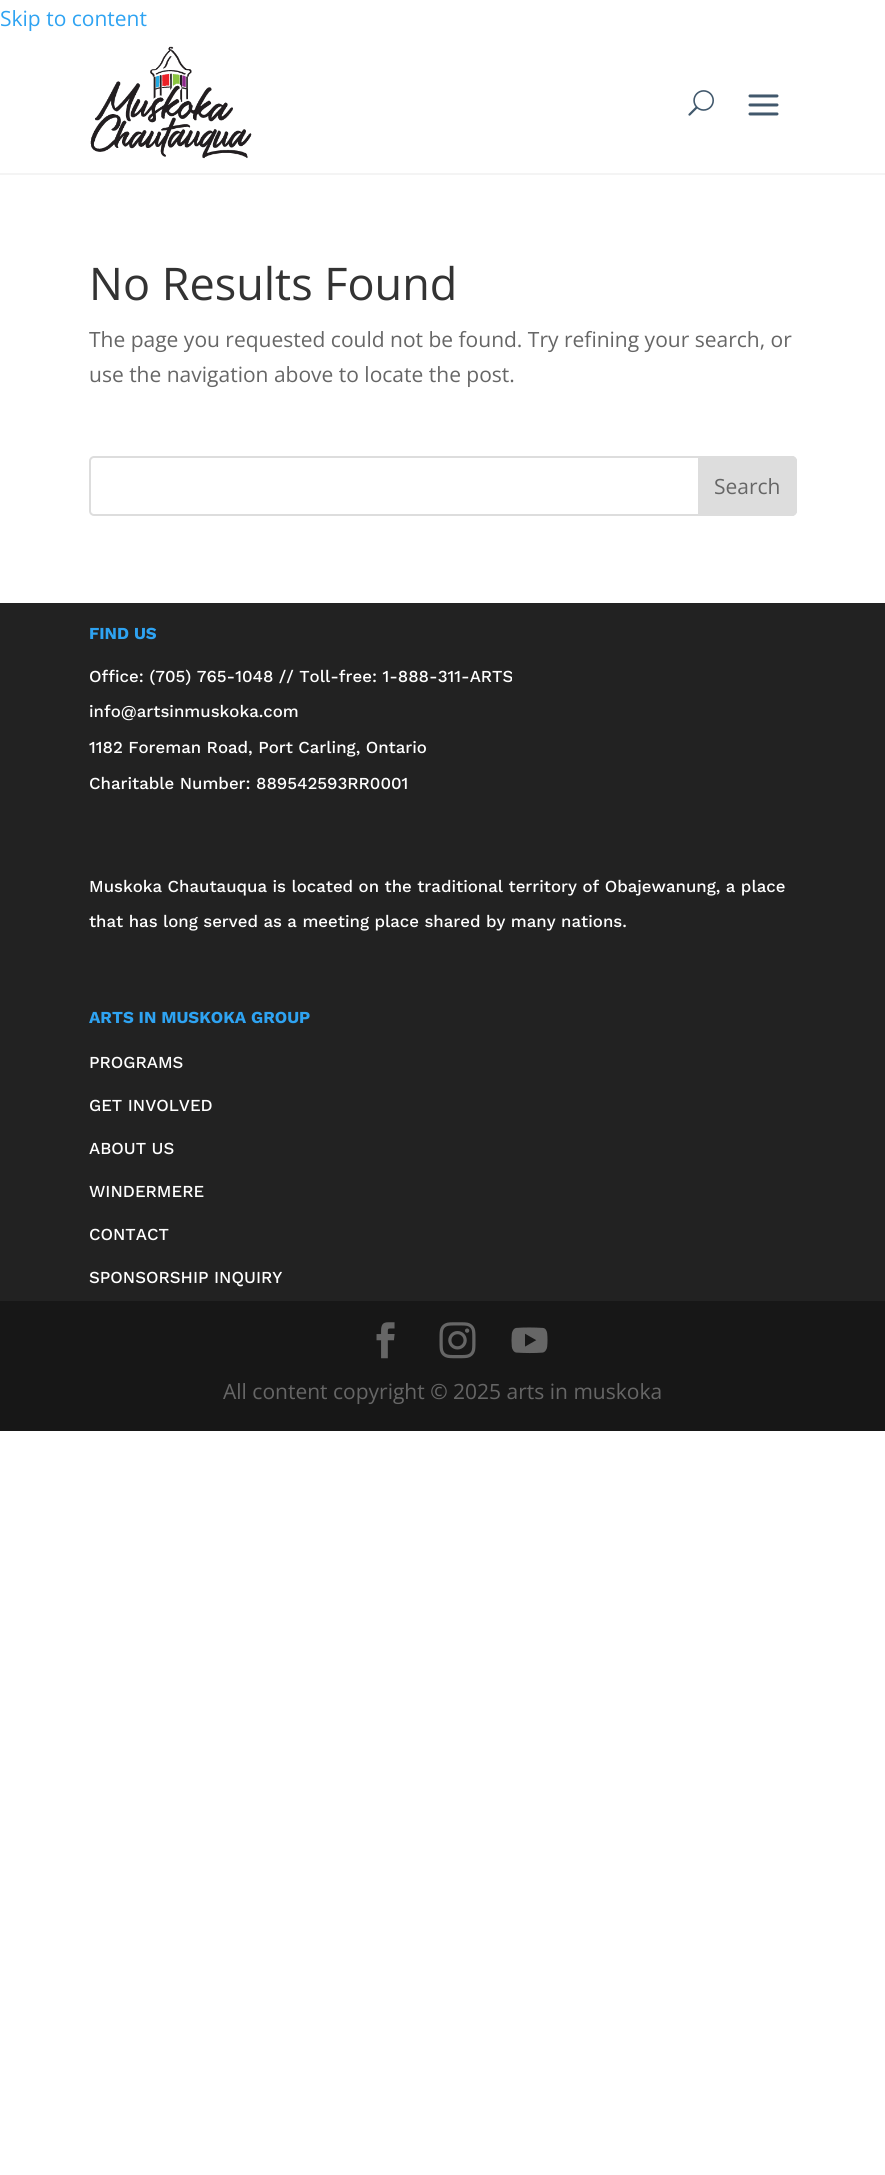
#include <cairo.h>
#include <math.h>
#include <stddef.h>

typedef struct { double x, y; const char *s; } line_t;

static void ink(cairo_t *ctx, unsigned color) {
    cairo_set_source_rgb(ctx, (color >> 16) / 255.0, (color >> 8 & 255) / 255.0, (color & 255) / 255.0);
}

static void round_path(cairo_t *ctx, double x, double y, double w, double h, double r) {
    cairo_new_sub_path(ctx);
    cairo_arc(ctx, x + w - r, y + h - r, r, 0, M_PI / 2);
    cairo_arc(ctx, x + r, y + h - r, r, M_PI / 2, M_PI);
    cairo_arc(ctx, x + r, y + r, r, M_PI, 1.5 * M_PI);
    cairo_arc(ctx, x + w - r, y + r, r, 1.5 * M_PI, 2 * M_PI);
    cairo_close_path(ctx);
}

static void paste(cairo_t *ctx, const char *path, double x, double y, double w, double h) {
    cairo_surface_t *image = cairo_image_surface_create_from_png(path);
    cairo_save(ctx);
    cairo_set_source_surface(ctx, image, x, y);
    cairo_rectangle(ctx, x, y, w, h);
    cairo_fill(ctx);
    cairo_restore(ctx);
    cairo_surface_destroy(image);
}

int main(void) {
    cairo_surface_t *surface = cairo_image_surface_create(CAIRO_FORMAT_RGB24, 885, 2175);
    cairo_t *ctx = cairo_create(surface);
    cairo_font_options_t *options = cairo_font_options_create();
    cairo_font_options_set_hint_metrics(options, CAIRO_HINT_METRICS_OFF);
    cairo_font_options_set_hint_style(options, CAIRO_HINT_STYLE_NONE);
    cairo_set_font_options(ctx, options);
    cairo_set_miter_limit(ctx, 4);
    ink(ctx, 0xFFFFFF);
    cairo_paint(ctx);
    cairo_select_font_face(ctx, "Open Sans", CAIRO_FONT_SLANT_NORMAL, CAIRO_FONT_WEIGHT_NORMAL);
    cairo_set_font_size(ctx, 21);
    ink(ctx, 0x2EA3F2);
    cairo_move_to(ctx, 0, 26);
    cairo_show_text(ctx, "Skip to content");
    ink(ctx, 0xF4F4F4);
    cairo_rectangle(ctx, 0, 173, 885, 2);
    cairo_fill(ctx);
    paste(ctx, "media/1.png", 90, 46, 162, 113);
    paste(ctx, "media/2.png", 688, 90, 26, 26);
    paste(ctx, "media/3.png", 748, 94, 31, 22);
    cairo_set_font_size(ctx, 45);
    ink(ctx, 0x333333);
    cairo_move_to(ctx, 89, 300);
    cairo_show_text(ctx, "No Results Found");
    cairo_set_font_size(ctx, 21);
    ink(ctx, 0x666666);
    cairo_move_to(ctx, 89, 347);
    cairo_show_text(ctx, "The page you requested could not be found. Try refining your search, or");
    cairo_move_to(ctx, 89, 382);
    cairo_show_text(ctx, "use the navigation above to locate the post.");
    round_path(ctx, 90, 457, 706, 58, 4);
    ink(ctx, 0xDDDDDD);
    cairo_stroke(ctx);
    cairo_new_path(ctx);
    cairo_move_to(ctx, 699, 457);
    cairo_line_to(ctx, 792, 457);
    cairo_curve_to(ctx, 794, 457, 796, 459, 796, 461);
    cairo_line_to(ctx, 796, 511);
    cairo_curve_to(ctx, 796, 513, 794, 515, 792, 515);
    cairo_line_to(ctx, 699, 515);
    cairo_close_path(ctx);
    cairo_fill_preserve(ctx);
    cairo_stroke(ctx);
    ink(ctx, 0x666666);
    cairo_move_to(ctx, 714, 494);
    cairo_show_text(ctx, "Search");
    ink(ctx, 0x222222);
    cairo_rectangle(ctx, 0, 603, 885, 698);
    cairo_fill(ctx);
    cairo_select_font_face(ctx, "Work Sans", CAIRO_FONT_SLANT_NORMAL, CAIRO_FONT_WEIGHT_BOLD);
    cairo_set_font_size(ctx, 16.8);
    ink(ctx, 0x2EA3F2);
    cairo_move_to(ctx, 89, 639);
    cairo_show_text(ctx, "FIND US");
    cairo_select_font_face(ctx, "Work Sans Medium", CAIRO_FONT_SLANT_NORMAL, CAIRO_FONT_WEIGHT_NORMAL);
    ink(ctx, 0xFFFFFF);
    {
        static const line_t items[] = {
            {89, 682, "Office: (705) 765-1048 // Toll-free: 1-888-311-ARTS"},
            {89, 717, "info@artsinmuskoka.com"},
            {89, 753, "1182 Foreman Road, Port Carling, Ontario"},
            {89, 789, "Charitable Number: 889542593RR0001"},
            {89, 892, "Muskoka Chautauqua is located on the traditional territory of Obajewanung, a place"},
            {89, 927, "that has long served as a meeting place shared by many nations."},
        };
        for (size_t i = 0; i < sizeof items / sizeof *items; i++) {
            cairo_move_to(ctx, items[i].x, items[i].y);
            cairo_show_text(ctx, items[i].s);
        }
    }
    cairo_select_font_face(ctx, "Work Sans", CAIRO_FONT_SLANT_NORMAL, CAIRO_FONT_WEIGHT_BOLD);
    ink(ctx, 0x2EA3F2);
    cairo_move_to(ctx, 89, 1023);
    cairo_show_text(ctx, "ARTS IN MUSKOKA GROUP");
    cairo_select_font_face(ctx, "Work Sans Medium", CAIRO_FONT_SLANT_NORMAL, CAIRO_FONT_WEIGHT_NORMAL);
    ink(ctx, 0xFFFFFF);
    {
        static const line_t items[] = {
            {89, 1068, "PROGRAMS"},
            {89, 1111, "GET INVOLVED"},
            {89, 1154, "ABOUT US"},
            {89, 1197, "WINDERMERE"},
            {89, 1240, "CONTACT"},
            {89, 1283, "SPONSORSHIP INQUIRY"},
        };
        for (size_t i = 0; i < sizeof items / sizeof *items; i++) {
            cairo_move_to(ctx, items[i].x, items[i].y);
            cairo_show_text(ctx, items[i].s);
        }
    }
    ink(ctx, 0x171717);
    cairo_rectangle(ctx, 0, 1301, 885, 130);
    cairo_fill(ctx);
    paste(ctx, "media/4.png", 376, 1322, 19, 37);
    paste(ctx, "media/5.png", 439, 1322, 37, 37);
    paste(ctx, "media/6.png", 511, 1327, 37, 27);
    cairo_select_font_face(ctx, "Open Sans", CAIRO_FONT_SLANT_NORMAL, CAIRO_FONT_WEIGHT_NORMAL);
    cairo_set_font_size(ctx, 21);
    ink(ctx, 0x666666);
    cairo_move_to(ctx, 223, 1399);
    cairo_show_text(ctx, "All content copyright © 2025 arts in muskoka");
    cairo_surface_write_to_png(surface, "image.png");
    cairo_font_options_destroy(options);
    cairo_destroy(ctx);
    cairo_surface_destroy(surface);
    return 0;
}
